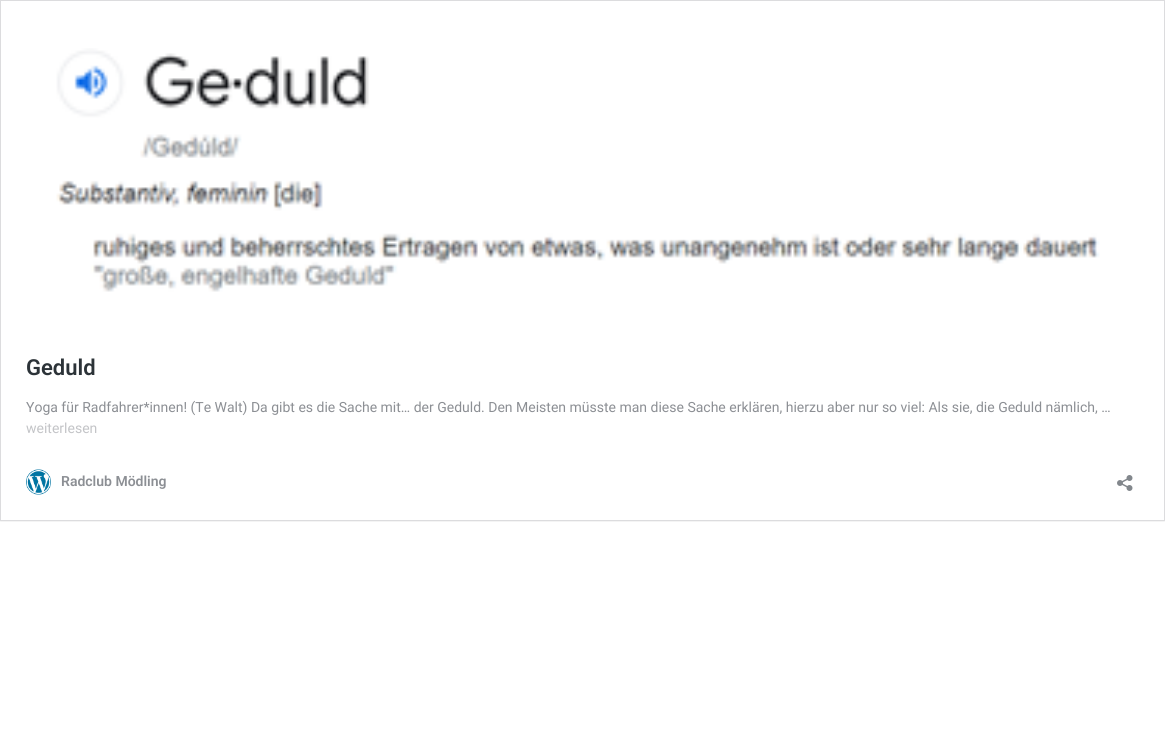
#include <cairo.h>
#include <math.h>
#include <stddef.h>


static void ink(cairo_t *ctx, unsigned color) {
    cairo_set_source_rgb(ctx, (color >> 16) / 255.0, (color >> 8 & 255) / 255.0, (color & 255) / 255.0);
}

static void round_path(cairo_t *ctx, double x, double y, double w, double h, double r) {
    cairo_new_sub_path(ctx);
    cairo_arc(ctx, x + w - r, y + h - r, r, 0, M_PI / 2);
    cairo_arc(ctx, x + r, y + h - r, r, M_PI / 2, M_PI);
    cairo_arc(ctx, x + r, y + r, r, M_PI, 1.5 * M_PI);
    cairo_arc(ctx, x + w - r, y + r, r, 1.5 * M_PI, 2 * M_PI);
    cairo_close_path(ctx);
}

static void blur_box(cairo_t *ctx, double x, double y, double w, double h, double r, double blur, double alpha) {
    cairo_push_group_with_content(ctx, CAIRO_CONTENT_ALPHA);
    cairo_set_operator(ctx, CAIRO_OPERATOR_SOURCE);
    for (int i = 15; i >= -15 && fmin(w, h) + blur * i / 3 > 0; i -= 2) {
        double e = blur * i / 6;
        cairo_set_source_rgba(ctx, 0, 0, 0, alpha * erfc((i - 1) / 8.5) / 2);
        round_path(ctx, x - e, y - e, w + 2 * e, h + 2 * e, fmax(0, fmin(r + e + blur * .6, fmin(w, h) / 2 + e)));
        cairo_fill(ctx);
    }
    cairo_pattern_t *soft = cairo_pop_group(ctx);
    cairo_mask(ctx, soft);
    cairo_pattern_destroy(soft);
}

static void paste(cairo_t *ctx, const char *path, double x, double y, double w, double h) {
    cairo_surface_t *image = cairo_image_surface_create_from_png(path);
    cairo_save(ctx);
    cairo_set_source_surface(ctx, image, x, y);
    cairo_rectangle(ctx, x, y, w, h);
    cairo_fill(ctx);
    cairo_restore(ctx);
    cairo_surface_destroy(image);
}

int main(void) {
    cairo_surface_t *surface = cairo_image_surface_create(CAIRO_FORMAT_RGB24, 1165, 732);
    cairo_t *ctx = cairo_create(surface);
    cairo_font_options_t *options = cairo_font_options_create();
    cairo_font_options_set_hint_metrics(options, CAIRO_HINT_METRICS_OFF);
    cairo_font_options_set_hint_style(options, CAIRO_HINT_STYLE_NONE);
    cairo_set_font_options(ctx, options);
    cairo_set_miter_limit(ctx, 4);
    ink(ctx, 0xFFFFFF);
    cairo_paint(ctx);
    cairo_save(ctx);
    cairo_rectangle(ctx, 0, 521, 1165, 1);
    cairo_clip(ctx);
    ink(ctx, 0x000000);
    blur_box(ctx, 0, 1, 1165, 521, 0, 0.5, 0.05);
    cairo_restore(ctx);
    cairo_rectangle(ctx, 0.5, 0.5, 1164, 520);
    ink(ctx, 0xDCDCDE);
    cairo_set_line_width(ctx, 1);
    cairo_stroke(ctx);
    paste(ctx, "media/1.png", 56, 48, 1044, 244);
    cairo_select_font_face(ctx, "Roboto SemiBold", CAIRO_FONT_SLANT_NORMAL, CAIRO_FONT_WEIGHT_NORMAL);
    cairo_set_font_size(ctx, 22);
    ink(ctx, 0x2C3338);
    cairo_move_to(ctx, 26, 375);
    cairo_show_text(ctx, "Geduld");
    cairo_select_font_face(ctx, "Roboto", CAIRO_FONT_SLANT_NORMAL, CAIRO_FONT_WEIGHT_NORMAL);
    cairo_set_font_size(ctx, 14);
    ink(ctx, 0x8C8F94);
    cairo_move_to(ctx, 26, 412);
    cairo_show_text(ctx, "Yoga für Radfahrer*innen! (Te Walt) Da gibt es die Sache mit… der Geduld. Den Meisten müsste man diese Sache erklären, hierzu aber nur so viel: Als sie, die Geduld nämlich, …");
    ink(ctx, 0xC3C4C7);
    cairo_move_to(ctx, 26, 433);
    cairo_show_text(ctx, "weiterlesen");
    paste(ctx, "media/2.png", 26, 469, 25, 26);
    cairo_select_font_face(ctx, "Roboto SemiBold", CAIRO_FONT_SLANT_NORMAL, CAIRO_FONT_WEIGHT_NORMAL);
    ink(ctx, 0x8C8F94);
    cairo_move_to(ctx, 61, 486);
    cairo_show_text(ctx, "Radclub Mödling");
    paste(ctx, "media/3.png", 1117, 475, 16, 16);
    cairo_surface_write_to_png(surface, "image.png");
    cairo_font_options_destroy(options);
    cairo_destroy(ctx);
    cairo_surface_destroy(surface);
    return 0;
}
